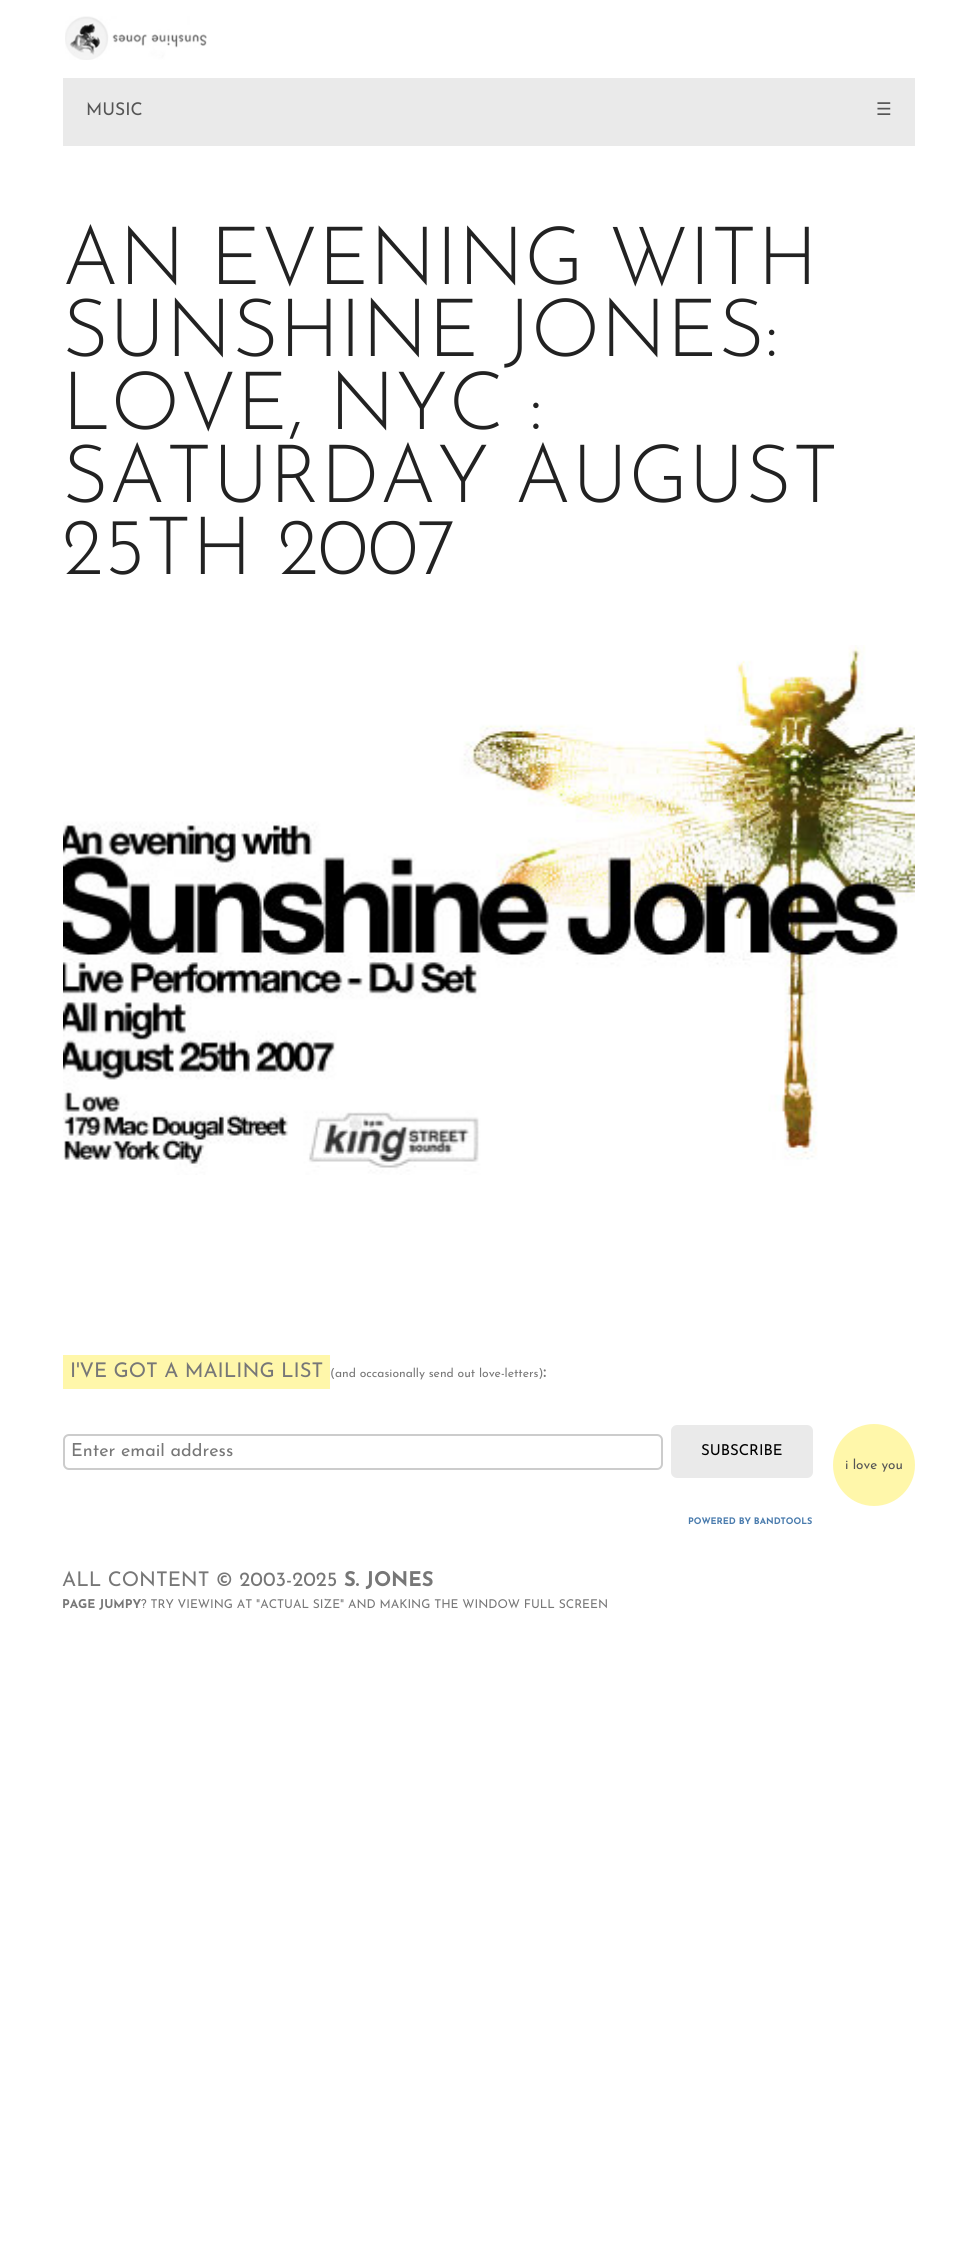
#include <cairo.h>
#include <math.h>
#include <stddef.h>

typedef struct { double x, y; const char *s; } line_t;

static void ink(cairo_t *ctx, unsigned color) {
    cairo_set_source_rgb(ctx, (color >> 16) / 255.0, (color >> 8 & 255) / 255.0, (color & 255) / 255.0);
}

static void round_path(cairo_t *ctx, double x, double y, double w, double h, double r) {
    cairo_new_sub_path(ctx);
    cairo_arc(ctx, x + w - r, y + h - r, r, 0, M_PI / 2);
    cairo_arc(ctx, x + r, y + h - r, r, M_PI / 2, M_PI);
    cairo_arc(ctx, x + r, y + r, r, M_PI, 1.5 * M_PI);
    cairo_arc(ctx, x + w - r, y + r, r, 1.5 * M_PI, 2 * M_PI);
    cairo_close_path(ctx);
}

static void paste(cairo_t *ctx, const char *path, double x, double y, double w, double h) {
    cairo_surface_t *image = cairo_image_surface_create_from_png(path);
    cairo_save(ctx);
    cairo_set_source_surface(ctx, image, x, y);
    cairo_rectangle(ctx, x, y, w, h);
    cairo_fill(ctx);
    cairo_restore(ctx);
    cairo_surface_destroy(image);
}

int main(void) {
    cairo_surface_t *surface = cairo_image_surface_create(CAIRO_FORMAT_RGB24, 977, 2257);
    cairo_t *ctx = cairo_create(surface);
    cairo_font_options_t *options = cairo_font_options_create();
    cairo_font_options_set_hint_metrics(options, CAIRO_HINT_METRICS_OFF);
    cairo_font_options_set_hint_style(options, CAIRO_HINT_STYLE_NONE);
    cairo_set_font_options(ctx, options);
    cairo_set_miter_limit(ctx, 4);
    ink(ctx, 0xFFFFFF);
    cairo_paint(ctx);
    paste(ctx, "media/1.png", 65, 16, 142, 44);
    ink(ctx, 0xEAEAEA);
    cairo_rectangle(ctx, 63, 78, 852, 68);
    cairo_fill(ctx);
    cairo_select_font_face(ctx, "Josefin Sans", CAIRO_FONT_SLANT_NORMAL, CAIRO_FONT_WEIGHT_NORMAL);
    cairo_set_font_size(ctx, 17.5);
    ink(ctx, 0x555555);
    cairo_move_to(ctx, 86, 115);
    cairo_show_text(ctx, "MUSIC");
    cairo_select_font_face(ctx, "DejaVu Sans", CAIRO_FONT_SLANT_NORMAL, CAIRO_FONT_WEIGHT_NORMAL);
    cairo_move_to(ctx, 876, 115);
    cairo_show_text(ctx, "☰");
    cairo_select_font_face(ctx, "Josefin Sans Light", CAIRO_FONT_SLANT_NORMAL, CAIRO_FONT_WEIGHT_NORMAL);
    cairo_set_font_size(ctx, 80.6);
    ink(ctx, 0x222222);
    {
        static const line_t items[] = {
            {62, 284, "AN EVENING WITH"},
            {62, 356, "SUNSHINE JONES:"},
            {62, 429, "LOVE, NYC :"},
            {62, 502, "SATURDAY AUGUST"},
            {62, 574, "25TH 2007"},
        };
        for (size_t i = 0; i < sizeof items / sizeof *items; i++) {
            cairo_move_to(ctx, items[i].x, items[i].y);
            cairo_show_text(ctx, items[i].s);
        }
    }
    paste(ctx, "media/2.png", 63, 645, 852, 530);
    ink(ctx, 0xFFF7AA);
    cairo_rectangle(ctx, 63, 1355, 267, 34);
    cairo_fill(ctx);
    cairo_select_font_face(ctx, "Josefin Sans", CAIRO_FONT_SLANT_NORMAL, CAIRO_FONT_WEIGHT_NORMAL);
    cairo_set_font_size(ctx, 20.2);
    ink(ctx, 0x777777);
    cairo_move_to(ctx, 70, 1377);
    cairo_show_text(ctx, "I'VE GOT A MAILING LIST");
    cairo_set_font_size(ctx, 12.1);
    cairo_move_to(ctx, 330, 1377);
    cairo_show_text(ctx, "(and occasionally send out love-letters)");
    cairo_set_font_size(ctx, 20.2);
    cairo_move_to(ctx, 543, 1377);
    cairo_show_text(ctx, ":");
    round_path(ctx, 64, 1435, 598, 34, 5);
    ink(ctx, 0xCCCCCC);
    cairo_stroke(ctx);
    cairo_save(ctx);
    cairo_rectangle(ctx, 72, 1443, 582, 18);
    cairo_clip(ctx);
    cairo_set_font_size(ctx, 18);
    ink(ctx, 0x777777);
    cairo_move_to(ctx, 71, 1456);
    cairo_show_text(ctx, "Enter email address");
    cairo_restore(ctx);
    ink(ctx, 0xEAEAEA);
    round_path(ctx, 671, 1425, 142, 53, 6);
    cairo_fill(ctx);
    cairo_set_font_size(ctx, 15);
    ink(ctx, 0x000000);
    cairo_move_to(ctx, 701, 1455);
    cairo_show_text(ctx, "SUBSCRIBE");
    cairo_select_font_face(ctx, "Josefin Sans", CAIRO_FONT_SLANT_NORMAL, CAIRO_FONT_WEIGHT_BOLD);
    cairo_set_font_size(ctx, 9);
    ink(ctx, 0x497BAD);
    cairo_move_to(ctx, 688, 1524);
    cairo_show_text(ctx, "POWERED BY BANDTOOLS");
    ink(ctx, 0xFFF7AA);
    cairo_new_path(ctx);
    cairo_arc(ctx, 874, 1465, 41, 0, 2 * M_PI);
    cairo_fill(ctx);
    cairo_select_font_face(ctx, "Josefin Sans", CAIRO_FONT_SLANT_NORMAL, CAIRO_FONT_WEIGHT_NORMAL);
    cairo_set_font_size(ctx, 13.5);
    ink(ctx, 0x555555);
    cairo_move_to(ctx, 845, 1469);
    cairo_show_text(ctx, "i love you");
    cairo_set_font_size(ctx, 20.2);
    ink(ctx, 0x777777);
    cairo_move_to(ctx, 62, 1586);
    cairo_show_text(ctx, "ALL CONTENT © 2003-2025");
    cairo_select_font_face(ctx, "Josefin Sans", CAIRO_FONT_SLANT_NORMAL, CAIRO_FONT_WEIGHT_BOLD);
    cairo_move_to(ctx, 344, 1586);
    cairo_show_text(ctx, "S. JONES");
    cairo_set_font_size(ctx, 12.1);
    cairo_move_to(ctx, 62, 1608);
    cairo_show_text(ctx, "PAGE JUMPY");
    cairo_select_font_face(ctx, "Josefin Sans", CAIRO_FONT_SLANT_NORMAL, CAIRO_FONT_WEIGHT_NORMAL);
    cairo_move_to(ctx, 141, 1608);
    cairo_show_text(ctx, "? TRY VIEWING AT \"ACTUAL SIZE\" AND MAKING THE WINDOW FULL SCREEN");
    cairo_surface_write_to_png(surface, "image.png");
    cairo_font_options_destroy(options);
    cairo_destroy(ctx);
    cairo_surface_destroy(surface);
    return 0;
}
